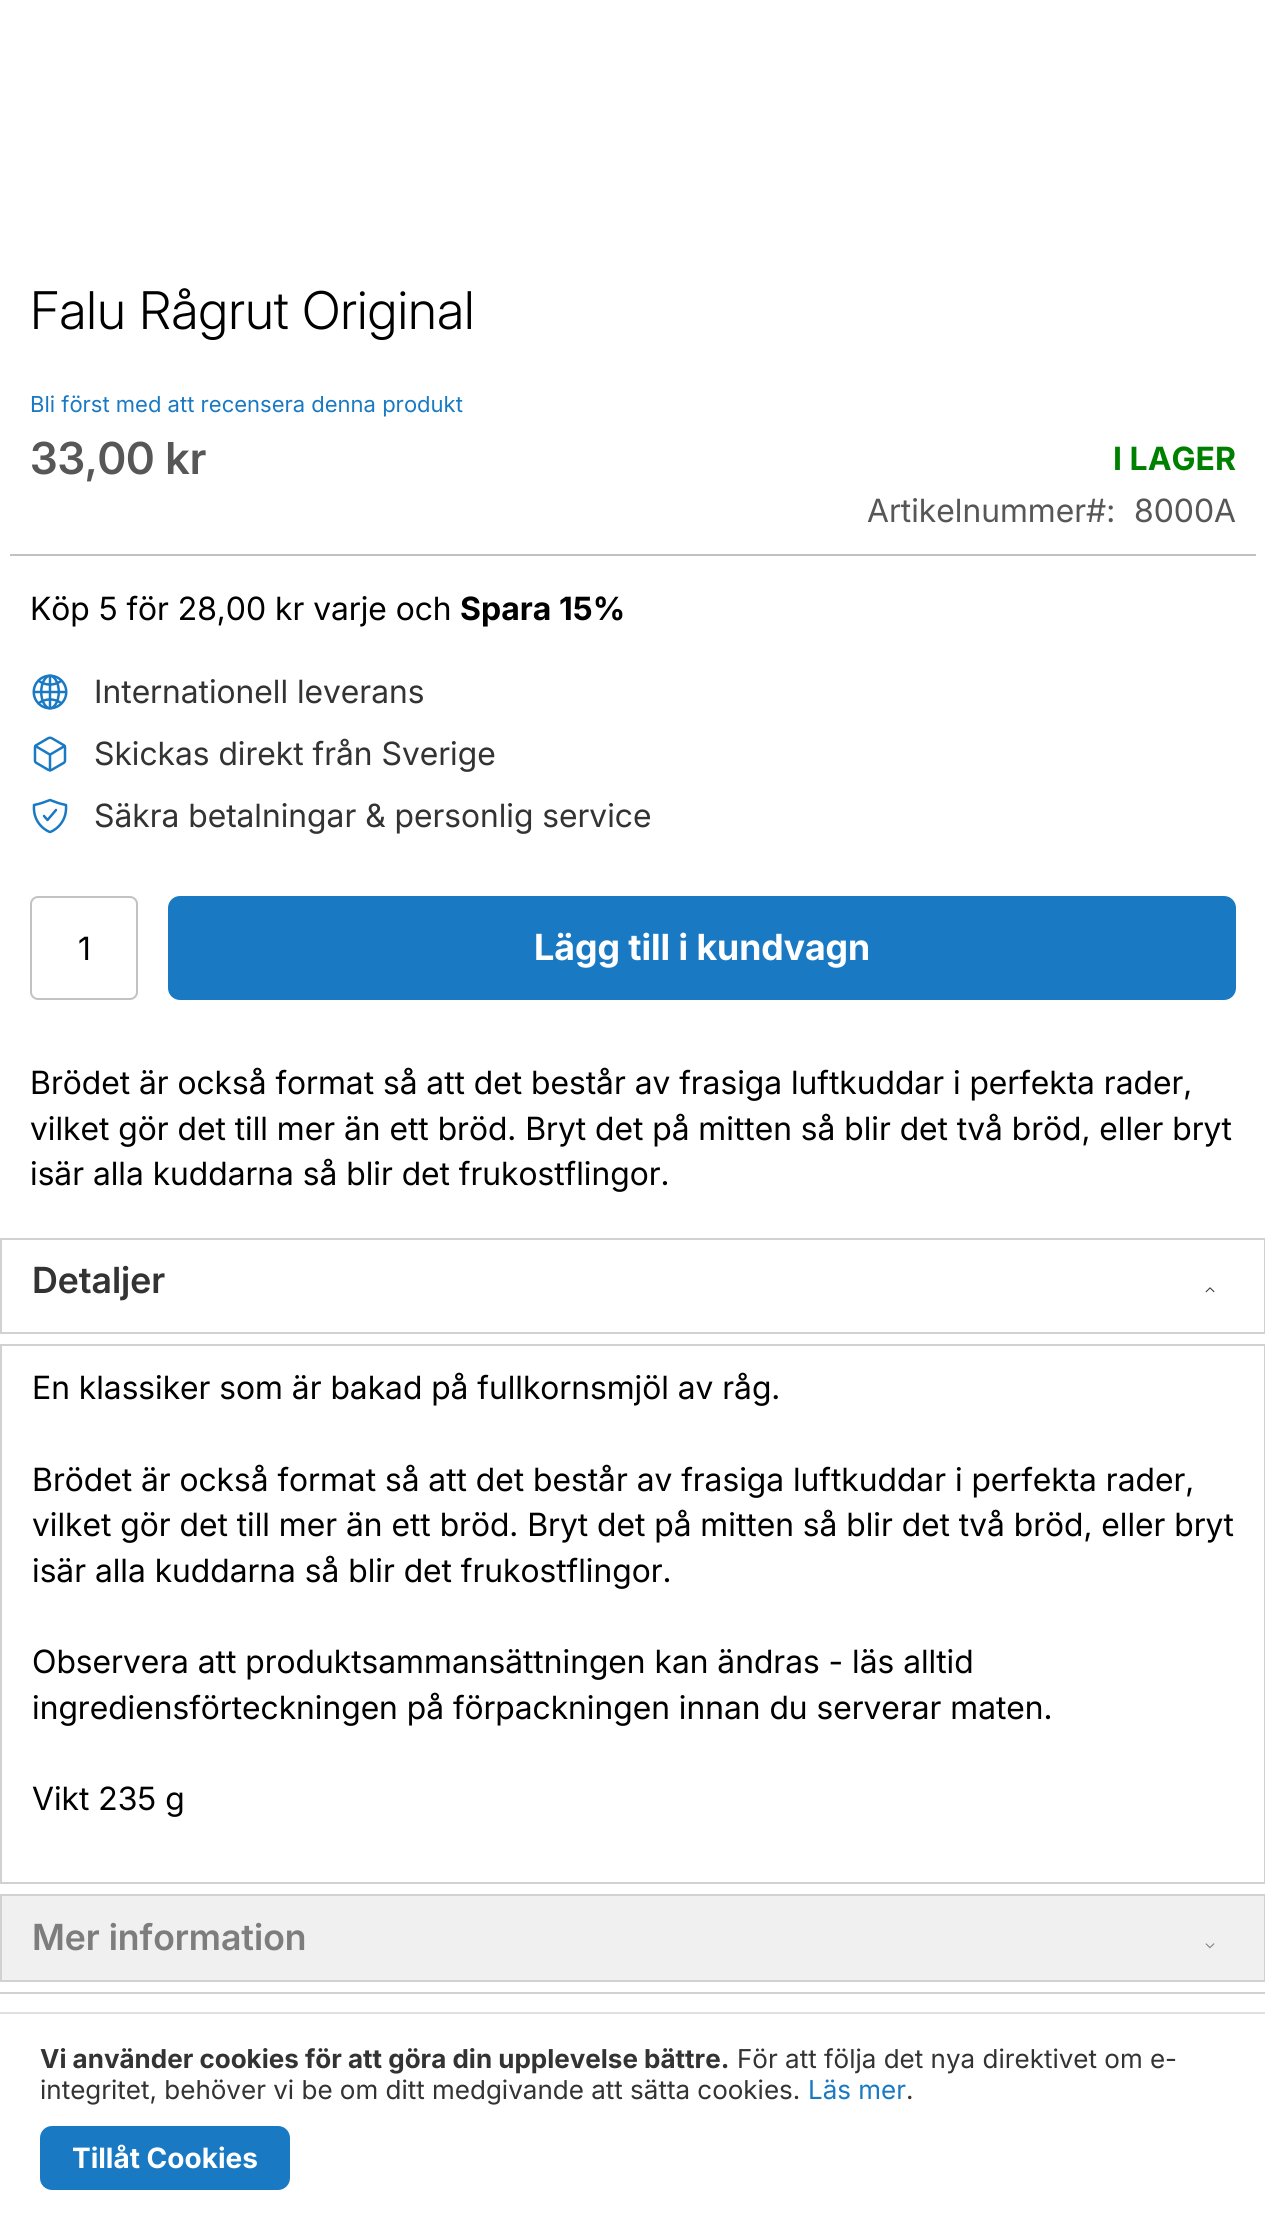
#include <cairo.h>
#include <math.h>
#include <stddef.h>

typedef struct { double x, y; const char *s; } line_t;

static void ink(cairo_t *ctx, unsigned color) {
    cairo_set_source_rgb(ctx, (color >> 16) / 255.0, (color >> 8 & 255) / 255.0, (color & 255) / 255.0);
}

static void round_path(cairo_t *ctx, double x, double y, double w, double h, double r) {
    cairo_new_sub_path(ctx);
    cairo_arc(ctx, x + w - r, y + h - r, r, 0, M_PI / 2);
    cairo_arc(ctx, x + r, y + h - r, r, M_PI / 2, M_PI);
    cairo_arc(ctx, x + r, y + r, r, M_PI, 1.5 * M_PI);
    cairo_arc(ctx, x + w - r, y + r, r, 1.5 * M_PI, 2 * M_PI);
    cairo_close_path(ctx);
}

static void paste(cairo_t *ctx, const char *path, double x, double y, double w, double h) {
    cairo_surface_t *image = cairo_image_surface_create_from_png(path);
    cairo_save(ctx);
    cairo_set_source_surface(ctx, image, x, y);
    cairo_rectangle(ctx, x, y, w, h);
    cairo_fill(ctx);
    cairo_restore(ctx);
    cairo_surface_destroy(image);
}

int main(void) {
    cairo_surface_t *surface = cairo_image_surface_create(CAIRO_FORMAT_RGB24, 1265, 2220);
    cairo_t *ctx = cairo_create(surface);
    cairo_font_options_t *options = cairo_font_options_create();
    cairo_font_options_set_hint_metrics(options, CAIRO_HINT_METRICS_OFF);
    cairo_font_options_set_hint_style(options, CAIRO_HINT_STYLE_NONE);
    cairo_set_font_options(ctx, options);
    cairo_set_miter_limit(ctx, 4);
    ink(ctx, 0xFFFFFF);
    cairo_paint(ctx);
    cairo_select_font_face(ctx, "Inter Light", CAIRO_FONT_SLANT_NORMAL, CAIRO_FONT_WEIGHT_NORMAL);
    cairo_set_font_size(ctx, 52);
    ink(ctx, 0x000000);
    cairo_move_to(ctx, 30, 329);
    cairo_show_text(ctx, "Falu Rågrut Original");
    cairo_select_font_face(ctx, "Inter", CAIRO_FONT_SLANT_NORMAL, CAIRO_FONT_WEIGHT_NORMAL);
    cairo_set_font_size(ctx, 22);
    ink(ctx, 0x1979C3);
    cairo_move_to(ctx, 30, 412);
    cairo_show_text(ctx, "Bli först med att recensera denna produkt");
    ink(ctx, 0xC1C1C1);
    cairo_rectangle(ctx, 10, 554, 1246, 2);
    cairo_fill(ctx);
    cairo_select_font_face(ctx, "Inter SemiBold", CAIRO_FONT_SLANT_NORMAL, CAIRO_FONT_WEIGHT_NORMAL);
    cairo_set_font_size(ctx, 44);
    ink(ctx, 0x575757);
    cairo_move_to(ctx, 30, 474);
    cairo_show_text(ctx, "33,00 kr");
    cairo_select_font_face(ctx, "Inter", CAIRO_FONT_SLANT_NORMAL, CAIRO_FONT_WEIGHT_BOLD);
    cairo_set_font_size(ctx, 32);
    ink(ctx, 0x008000);
    cairo_move_to(ctx, 1113, 470);
    cairo_show_text(ctx, "I LAGER");
    cairo_select_font_face(ctx, "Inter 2", CAIRO_FONT_SLANT_NORMAL, CAIRO_FONT_WEIGHT_NORMAL);
    ink(ctx, 0x575757);
    cairo_move_to(ctx, 867, 522);
    cairo_show_text(ctx, "Artikelnummer#:");
    cairo_move_to(ctx, 1134, 522);
    cairo_show_text(ctx, "8000A");
    ink(ctx, 0x000000);
    cairo_move_to(ctx, 30, 620);
    cairo_show_text(ctx, "Köp 5 för 28,00 kr varje och");
    cairo_select_font_face(ctx, "Inter", CAIRO_FONT_SLANT_NORMAL, CAIRO_FONT_WEIGHT_BOLD);
    cairo_move_to(ctx, 460, 620);
    cairo_show_text(ctx, "Spara");
    cairo_move_to(ctx, 559, 620);
    cairo_show_text(ctx, "15%");
    paste(ctx, "media/1.png", 32, 674, 36, 36);
    cairo_select_font_face(ctx, "Inter 2", CAIRO_FONT_SLANT_NORMAL, CAIRO_FONT_WEIGHT_NORMAL);
    ink(ctx, 0x333333);
    cairo_move_to(ctx, 94, 703);
    cairo_show_text(ctx, "Internationell leverans");
    paste(ctx, "media/2.png", 33, 736, 34, 36);
    cairo_move_to(ctx, 94, 765);
    cairo_show_text(ctx, "Skickas direkt från Sverige");
    cairo_new_path(ctx);
    cairo_move_to(ctx, 56, 810);
    cairo_line_to(ctx, 47.5, 820);
    cairo_line_to(ctx, 44, 816);
    cairo_move_to(ctx, 66, 805);
    cairo_curve_to(ctx, 59, 803.5, 56.5, 802.5, 50, 800);
    cairo_curve_to(ctx, 43.5, 802.5, 41, 803.5, 34, 805);
    cairo_curve_to(ctx, 32.5, 825, 49, 832, 50, 832);
    cairo_curve_to(ctx, 51, 832, 67.5, 825, 66, 805);
    cairo_close_path(ctx);
    ink(ctx, 0x1979C3);
    cairo_set_line_width(ctx, 2.5);
    cairo_set_line_cap(ctx, CAIRO_LINE_CAP_ROUND);
    cairo_set_line_join(ctx, CAIRO_LINE_JOIN_ROUND);
    cairo_stroke(ctx);
    ink(ctx, 0x333333);
    cairo_move_to(ctx, 94, 827);
    cairo_show_text(ctx, "Säkra betalningar & personlig service");
    round_path(ctx, 31, 897, 106, 102, 7);
    ink(ctx, 0xC2C2C2);
    cairo_set_line_width(ctx, 2);
    cairo_set_line_cap(ctx, CAIRO_LINE_CAP_BUTT);
    cairo_set_line_join(ctx, CAIRO_LINE_JOIN_MITER);
    cairo_stroke(ctx);
    ink(ctx, 0x000000);
    cairo_move_to(ctx, 78, 960);
    cairo_show_text(ctx, "1");
    ink(ctx, 0x1979C3);
    round_path(ctx, 169, 897, 1066, 102, 11);
    cairo_fill_preserve(ctx);
    cairo_stroke(ctx);
    cairo_select_font_face(ctx, "Inter 2", CAIRO_FONT_SLANT_NORMAL, CAIRO_FONT_WEIGHT_BOLD);
    cairo_set_font_size(ctx, 36);
    ink(ctx, 0xFFFFFF);
    cairo_move_to(ctx, 534, 960);
    cairo_show_text(ctx, "Lägg till i kundvagn");
    cairo_select_font_face(ctx, "Inter 2", CAIRO_FONT_SLANT_NORMAL, CAIRO_FONT_WEIGHT_NORMAL);
    cairo_set_font_size(ctx, 32);
    ink(ctx, 0x000000);
    {
        static const line_t items[] = {
            {30, 1094, "Brödet är också format så att det består av frasiga luftkuddar i perfekta rader,"},
            {30, 1140, "vilket gör det till mer än ett bröd. Bryt det på mitten så blir det två bröd, eller bryt"},
            {30, 1185, "isär alla kuddarna så blir det frukostflingor."},
        };
        for (size_t i = 0; i < sizeof items / sizeof *items; i++) {
            cairo_move_to(ctx, items[i].x, items[i].y);
            cairo_show_text(ctx, items[i].s);
        }
    }
    ink(ctx, 0xD1D1D1);
    cairo_rectangle(ctx, 0, 1992, 1265, 2);
    cairo_fill(ctx);
    cairo_rectangle(ctx, 1, 1239, 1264, 94);
    cairo_stroke(ctx);
    cairo_select_font_face(ctx, "Inter 2 SemiBold", CAIRO_FONT_SLANT_NORMAL, CAIRO_FONT_WEIGHT_NORMAL);
    cairo_set_font_size(ctx, 36);
    ink(ctx, 0x333333);
    cairo_move_to(ctx, 32, 1293);
    cairo_show_text(ctx, "Detaljer");
    paste(ctx, "media/3.png", 1205, 1287, 10, 6);
    cairo_rectangle(ctx, 1, 1345, 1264, 538);
    ink(ctx, 0xD1D1D1);
    cairo_stroke(ctx);
    cairo_select_font_face(ctx, "Inter 2", CAIRO_FONT_SLANT_NORMAL, CAIRO_FONT_WEIGHT_NORMAL);
    cairo_set_font_size(ctx, 32);
    ink(ctx, 0x000000);
    {
        static const line_t items[] = {
            {32, 1399, "En klassiker som är bakad på fullkornsmjöl av råg."},
            {32, 1491, "Brödet är också format så att det består av frasiga luftkuddar i perfekta rader,"},
            {32, 1536, "vilket gör det till mer än ett bröd. Bryt det på mitten så blir det två bröd, eller bryt"},
            {32, 1582, "isär alla kuddarna så blir det frukostflingor."},
            {32, 1673, "Observera att produktsammansättningen kan ändras - läs alltid"},
            {32, 1719, "ingrediensförteckningen på förpackningen innan du serverar maten."},
            {32, 1810, "Vikt 235 g"},
        };
        for (size_t i = 0; i < sizeof items / sizeof *items; i++) {
            cairo_move_to(ctx, items[i].x, items[i].y);
            cairo_show_text(ctx, items[i].s);
        }
    }
    ink(ctx, 0xF0F0F0);
    cairo_rectangle(ctx, 1, 1895, 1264, 86);
    cairo_fill_preserve(ctx);
    ink(ctx, 0xD1D1D1);
    cairo_stroke(ctx);
    cairo_select_font_face(ctx, "Inter 2 SemiBold", CAIRO_FONT_SLANT_NORMAL, CAIRO_FONT_WEIGHT_NORMAL);
    cairo_set_font_size(ctx, 36);
    ink(ctx, 0x7D7D7D);
    cairo_move_to(ctx, 32, 1950);
    cairo_show_text(ctx, "Mer information");
    paste(ctx, "media/4.png", 1205, 1943, 10, 6);
    ink(ctx, 0xE0E0E0);
    cairo_rectangle(ctx, 0, 2012, 1265, 2);
    cairo_fill(ctx);
    cairo_select_font_face(ctx, "Inter", CAIRO_FONT_SLANT_NORMAL, CAIRO_FONT_WEIGHT_BOLD);
    cairo_set_font_size(ctx, 26);
    ink(ctx, 0x333333);
    cairo_move_to(ctx, 40, 2068);
    cairo_show_text(ctx, "Vi använder cookies för att göra din upplevelse bättre.");
    cairo_select_font_face(ctx, "Inter", CAIRO_FONT_SLANT_NORMAL, CAIRO_FONT_WEIGHT_NORMAL);
    cairo_move_to(ctx, 737, 2068);
    cairo_show_text(ctx, "För att följa det nya direktivet om e-");
    cairo_move_to(ctx, 40, 2099);
    cairo_show_text(ctx, "integritet, behöver vi be om ditt medgivande att sätta cookies.");
    ink(ctx, 0x1979C3);
    cairo_move_to(ctx, 808, 2099);
    cairo_show_text(ctx, "Läs mer");
    ink(ctx, 0x333333);
    cairo_move_to(ctx, 906, 2099);
    cairo_show_text(ctx, ".");
    ink(ctx, 0x1979C3);
    round_path(ctx, 41, 2127, 248, 62, 11);
    cairo_fill_preserve(ctx);
    cairo_stroke(ctx);
    cairo_select_font_face(ctx, "Inter", CAIRO_FONT_SLANT_NORMAL, CAIRO_FONT_WEIGHT_BOLD);
    cairo_set_font_size(ctx, 28);
    ink(ctx, 0xFFFFFF);
    cairo_move_to(ctx, 72, 2168);
    cairo_show_text(ctx, "Tillåt Cookies");
    cairo_surface_write_to_png(surface, "image.png");
    cairo_font_options_destroy(options);
    cairo_destroy(ctx);
    cairo_surface_destroy(surface);
    return 0;
}
